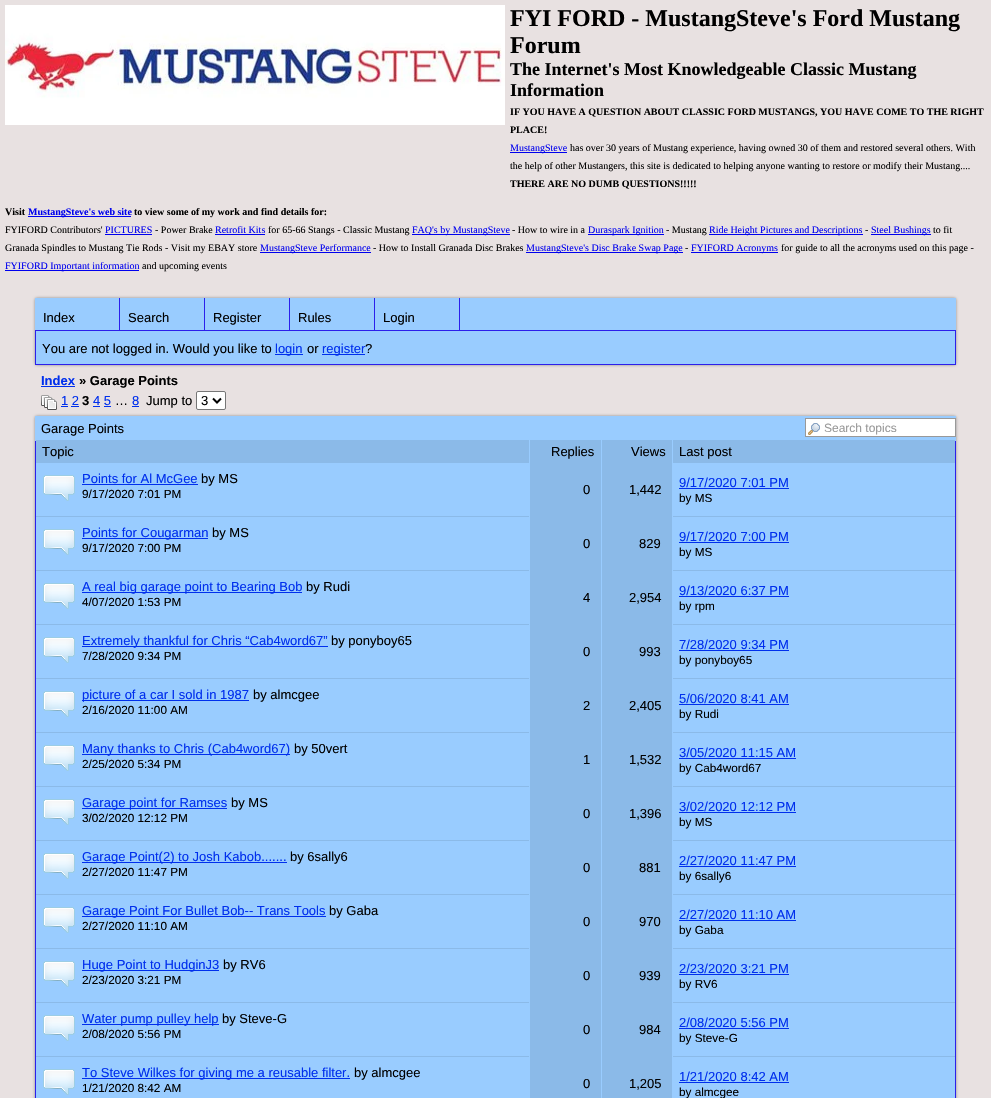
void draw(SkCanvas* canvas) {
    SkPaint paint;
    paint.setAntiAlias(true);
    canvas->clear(0xFFE8E1E1);
    canvas->drawImageRect(SkImages::DeferredFromEncodedData(SkData::MakeFromFileName("img1.png")), SkRect::MakeXYWH(5, 5, 500, 120), SkSamplingOptions());
    SkFont font1(fontMgr->matchFamilyStyle("Liberation Serif", SkFontStyle::Bold()), 24);
    font1.setSubpixel(true);
    paint.setColor(0xFF000000);
    canvas->drawString("FYI FORD - MustangSteve's Ford Mustang", 510, 26, font1, paint);
    canvas->drawString("Forum", 510, 53, font1, paint);
    SkFont font2(fontMgr->matchFamilyStyle("Liberation Serif", SkFontStyle::Bold()), 18);
    font2.setSubpixel(true);
    canvas->drawString("The Internet's Most Knowledgeable Classic Mustang", 510, 75, font2, paint);
    canvas->drawString("Information", 510, 96, font2, paint);
    SkFont font3(fontMgr->matchFamilyStyle("Liberation Serif", SkFontStyle::Bold()), 10);
    font3.setSubpixel(true);
    canvas->drawString("IF YOU HAVE A QUESTION ABOUT CLASSIC FORD MUSTANGS, YOU HAVE COME TO THE RIGHT", 510, 115, font3, paint);
    canvas->drawString("PLACE!", 510, 133, font3, paint);
    paint.setColor(0xFF0000EE);
    canvas->drawRect(SkRect::MakeXYWH(510, 152, 57, 1), paint);
    SkFont font4(fontMgr->matchFamilyStyle("Liberation Serif", SkFontStyle::Normal()), 10);
    font4.setSubpixel(true);
    canvas->drawString("MustangSteve", 510, 151, font4, paint);
    paint.setColor(0xFF000000);
    canvas->drawString("has over 30 years of Mustang experience, having owned 30 of them and restored several others. With", 570, 151, font4, paint);
    canvas->drawString("the help of other Mustangers, this site is dedicated to helping anyone wanting to restore or modify their Mustang....", 510, 169, font4, paint);
    canvas->drawString("THERE ARE NO DUMB QUESTIONS!!!!!", 510, 187, font3, paint);
    canvas->drawString("Visit", 5, 215, font3, paint);
    paint.setColor(0xFF0000EE);
    canvas->drawRect(SkRect::MakeXYWH(28, 216, 103, 1), paint);
    canvas->drawString("MustangSteve's web site", 28, 215, font3, paint);
    paint.setColor(0xFF000000);
    canvas->drawString("to view some of my work and find details for:", 134, 215, font3, paint);
    canvas->drawString("FYIFORD Contributors'", 5, 233, font4, paint);
    paint.setColor(0xFF0000EE);
    canvas->drawString("PICTURES", 105, 233, font4, paint);
    canvas->drawRect(SkRect::MakeXYWH(105, 234, 47, 1), paint);
    paint.setColor(0xFF000000);
    canvas->drawString("- Power Brake", 155, 233, font4, paint);
    paint.setColor(0xFF0000EE);
    canvas->drawString("Retrofit Kits", 215, 233, font4, paint);
    canvas->drawRect(SkRect::MakeXYWH(215, 234, 50, 1), paint);
    paint.setColor(0xFF000000);
    canvas->drawString("for 65-66 Stangs - Classic Mustang", 268, 233, font4, paint);
    paint.setColor(0xFF0000EE);
    canvas->drawRect(SkRect::MakeXYWH(412, 234, 98, 1), paint);
    canvas->drawString("FAQ's by MustangSteve", 412, 233, font4, paint);
    paint.setColor(0xFF000000);
    canvas->drawString("- How to wire in a", 512, 233, font4, paint);
    paint.setColor(0xFF0000EE);
    canvas->drawRect(SkRect::MakeXYWH(588, 234, 76, 1), paint);
    canvas->drawString("Duraspark Ignition", 588, 233, font4, paint);
    paint.setColor(0xFF000000);
    canvas->drawString("- Mustang", 666, 233, font4, paint);
    paint.setColor(0xFF0000EE);
    canvas->drawRect(SkRect::MakeXYWH(709, 234, 154, 1), paint);
    canvas->drawString("Ride Height Pictures and Descriptions", 709, 233, font4, paint);
    paint.setColor(0xFF000000);
    canvas->drawString("-", 865, 233, font4, paint);
    paint.setColor(0xFF0000EE);
    canvas->drawRect(SkRect::MakeXYWH(871, 234, 60, 1), paint);
    canvas->drawString("Steel Bushings", 871, 233, font4, paint);
    paint.setColor(0xFF000000);
    canvas->drawString("to fit", 933, 233, font4, paint);
    canvas->drawString("Granada Spindles to Mustang Tie Rods - Visit my EBAY store", 5, 251, font4, paint);
    paint.setColor(0xFF0000EE);
    canvas->drawRect(SkRect::MakeXYWH(260, 252, 111, 1), paint);
    canvas->drawString("MustangSteve Performance", 260, 251, font4, paint);
    paint.setColor(0xFF000000);
    canvas->drawString("- How to Install Granada Disc Brakes", 373, 251, font4, paint);
    paint.setColor(0xFF0000EE);
    canvas->drawRect(SkRect::MakeXYWH(526, 252, 157, 1), paint);
    canvas->drawString("MustangSteve's Disc Brake Swap Page", 526, 251, font4, paint);
    paint.setColor(0xFF000000);
    canvas->drawString("-", 685, 251, font4, paint);
    paint.setColor(0xFF0000EE);
    canvas->drawRect(SkRect::MakeXYWH(691, 252, 87, 1), paint);
    canvas->drawString("FYIFORD Acronyms", 691, 251, font4, paint);
    paint.setColor(0xFF000000);
    canvas->drawString("for guide to all the acronyms used on this page -", 781, 251, font4, paint);
    paint.setColor(0xFF0000EE);
    canvas->drawRect(SkRect::MakeXYWH(5, 270, 134, 1), paint);
    canvas->drawString("FYIFORD Important information", 5, 269, font4, paint);
    paint.setColor(0xFF000000);
    canvas->drawString("and upcoming events", 142, 269, font4, paint);
    paint.setColor(0xFF888888);
    paint.setMaskFilter(SkMaskFilter::MakeBlur(kNormal_SkBlurStyle, 1.5f));
    canvas->drawRoundRect(SkRect::MakeXYWH(35, 298, 921, 67), 2, 2, paint);
    paint.setMaskFilter(nullptr);
    paint.setColor(0xFF99CCFF);
    canvas->drawRect(SkRect::MakeXYWH(36, 331, 919, 33), paint);
    paint.setStyle(SkPaint::kStroke_Style);
    paint.setStrokeWidth(1);
    paint.setColor(0xFF2C1FEB);
    canvas->drawRect(SkRect::MakeXYWH(35.5f, 298.5f, 920, 66), paint);
    paint.setStyle(SkPaint::kFill_Style);
    paint.setColor(0xFF99CCFF);
    canvas->drawRect(SkRect::MakeXYWH(35, 298, 921, 32), paint);
    paint.setColor(0xFF2C1FEB);
    canvas->drawRect(SkRect::MakeXYWH(35, 330, 921, 1), paint);
    canvas->drawRect(SkRect::MakeXYWH(119, 298, 1, 32), paint);
    SkFont font5(fontMgr->matchFamilyStyle("Liberation Sans", SkFontStyle::Normal()), 13);
    font5.setSubpixel(true);
    paint.setColor(0xFF000000);
    canvas->drawString("Index", 43, 322, font5, paint);
    paint.setColor(0xFF2C1FEB);
    canvas->drawRect(SkRect::MakeXYWH(204, 298, 1, 32), paint);
    paint.setColor(0xFF000000);
    canvas->drawString("Search", 128, 322, font5, paint);
    paint.setColor(0xFF2C1FEB);
    canvas->drawRect(SkRect::MakeXYWH(289, 298, 1, 32), paint);
    paint.setColor(0xFF000000);
    canvas->drawString("Register", 213, 322, font5, paint);
    paint.setColor(0xFF2C1FEB);
    canvas->drawRect(SkRect::MakeXYWH(374, 298, 1, 32), paint);
    paint.setColor(0xFF000000);
    canvas->drawString("Rules", 298, 322, font5, paint);
    paint.setColor(0xFF2C1FEB);
    canvas->drawRect(SkRect::MakeXYWH(459, 298, 1, 32), paint);
    paint.setColor(0xFF000000);
    canvas->drawString("Login", 383, 322, font5, paint);
    canvas->drawString("You are not logged in. Would you like to", 42, 353, font5, paint);
    paint.setColor(0xFF002FED);
    canvas->drawRect(SkRect::MakeXYWH(275, 354, 28, 1), paint);
    canvas->drawString("login", 275, 353, font5, paint);
    paint.setColor(0xFF000000);
    canvas->drawString("or", 307, 353, font5, paint);
    paint.setColor(0xFF002FED);
    canvas->drawRect(SkRect::MakeXYWH(322, 354, 43, 1), paint);
    canvas->drawString("register", 322, 353, font5, paint);
    paint.setColor(0xFF000000);
    canvas->drawString("?", 365, 353, font5, paint);
    SkFont font6(fontMgr->matchFamilyStyle("Liberation Sans", SkFontStyle::Bold()), 13);
    font6.setSubpixel(true);
    paint.setColor(0xFF002FED);
    canvas->drawString("Index", 41, 385, font6, paint);
    canvas->drawRect(SkRect::MakeXYWH(41, 386, 34, 1), paint);
    paint.setColor(0xFF000000);
    canvas->drawString("» Garage Points", 79, 385, font6, paint);
    canvas->drawImageRect(SkImages::DeferredFromEncodedData(SkData::MakeFromFileName("img2.png")), SkRect::MakeXYWH(41, 395, 16, 15), SkSamplingOptions());
    paint.setColor(0xFF002FED);
    canvas->drawString("1 2", 61, 405, font5, paint);
    canvas->drawRect(SkRect::MakeXYWH(61, 406, 7, 1), paint);
    paint.setColor(0xFF000000);
    canvas->drawString("3", 82, 405, font6, paint);
    paint.setColor(0xFF002FED);
    canvas->drawString("4 5", 93, 405, font5, paint);
    canvas->drawRect(SkRect::MakeXYWH(93, 406, 7, 1), paint);
    paint.setColor(0xFF000000);
    canvas->drawString("…", 115, 405, font5, paint);
    paint.setColor(0xFF002FED);
    canvas->drawString("8", 132, 405, font5, paint);
    canvas->drawRect(SkRect::MakeXYWH(132, 406, 7, 1), paint);
    paint.setColor(0xFF000000);
    canvas->drawString("Jump to", 146, 405, font5, paint);
    paint.setColor(0xFFFFFFFF);
    canvas->drawRoundRect(SkRect::MakeXYWH(196.5f, 391.5f, 29, 18), 1.5f, 1.5f, paint);
    paint.setStyle(SkPaint::kStroke_Style);
    paint.setColor(0xFF767676);
    canvas->drawRoundRect(SkRect::MakeXYWH(196.5f, 391.5f, 29, 18), 1.5f, 1.5f, paint);
    paint.setStrokeWidth(2);
    paint.setColor(0xFF000000);
    canvas->drawPath(SkPathBuilder().moveTo(213, 398.5f).lineTo(217, 402.5f).lineTo(221, 398.5f).detach(), paint);
    paint.setStyle(SkPaint::kFill_Style);
    canvas->drawString("3", 201, 405, font5, paint);
    paint.setColor(0xFF002FED);
    canvas->drawRect(SkRect::MakeXYWH(71, 406, 8, 1), paint);
    canvas->drawRect(SkRect::MakeXYWH(104, 406, 7, 1), paint);
    paint.setColor(0xFF888888);
    paint.setMaskFilter(SkMaskFilter::MakeBlur(kNormal_SkBlurStyle, 1.5f));
    canvas->drawRoundRect(SkRect::MakeXYWH(35, 416, 921, 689), 2, 2, paint);
    paint.setMaskFilter(nullptr);
    paint.setColor(0xFF99CCFF);
    canvas->drawRect(SkRect::MakeXYWH(35, 416, 921, 25), paint);
    paint.setColor(0xFF000000);
    canvas->drawString("Garage Points", 41, 433, font5, paint);
    paint.setColor(0xFFFFFFFF);
    canvas->drawRect(SkRect::MakeXYWH(806, 419, 149, 17), paint);
    canvas->drawImageRect(SkImages::DeferredFromEncodedData(SkData::MakeFromFileName("img3.png")), SkRect::MakeXYWH(808, 423, 12, 12), SkSamplingOptions());
    paint.setStyle(SkPaint::kStroke_Style);
    paint.setStrokeWidth(1);
    paint.setColor(0xFF999999);
    canvas->drawRect(SkRect::MakeXYWH(805.5f, 418.5f, 150, 18), paint);
    SkFont font7(fontMgr->matchFamilyStyle("Liberation Sans", SkFontStyle::Normal()), 12);
    font7.setSubpixel(true);
    paint.setStyle(SkPaint::kFill_Style);
    canvas->drawString("Search topics", 824, 432, font7, paint);
    paint.setColor(0xFF99CCFF);
    canvas->drawRect(SkRect::MakeXYWH(36, 463, 919, 635), paint);
    paint.setStyle(SkPaint::kStroke_Style);
    paint.setColor(0xFF2C1FEB);
    canvas->drawRect(SkRect::MakeXYWH(35.5f, 441.5f, 920, 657), paint);
    paint.setStyle(SkPaint::kFill_Style);
    paint.setColor(0xFF8BBAE8);
    canvas->drawRect(SkRect::MakeXYWH(36, 440, 493, 23), paint);
    paint.setColor(0xFF000000);
    canvas->drawString("Topic", 42, 456, font5, paint);
    paint.setColor(0xFF8BBAE8);
    canvas->drawRect(SkRect::MakeXYWH(530, 440, 71, 658), paint);
    paint.setColor(0xFF99CCFF);
    canvas->drawRect(SkRect::MakeXYWH(529, 440, 1, 23), paint);
    paint.setColor(0xFF000000);
    canvas->drawString("Replies", 551, 456, font5, paint);
    paint.setColor(0xFF8BBAE8);
    canvas->drawRect(SkRect::MakeXYWH(602, 440, 70, 658), paint);
    paint.setColor(0xFF99CCFF);
    canvas->drawRect(SkRect::MakeXYWH(601, 440, 1, 23), paint);
    paint.setColor(0xFF000000);
    canvas->drawString("Views", 631, 456, font5, paint);
    paint.setColor(0xFF8BBAE8);
    canvas->drawRect(SkRect::MakeXYWH(673, 440, 282, 22), paint);
    paint.setColor(0xFF99CCFF);
    canvas->drawRect(SkRect::MakeXYWH(672, 440, 1, 22), paint);
    paint.setColor(0xFF000000);
    canvas->drawString("Last post", 679, 456, font5, paint);
    canvas->drawImageRect(SkImages::DeferredFromEncodedData(SkData::MakeFromFileName("img4.png")), SkRect::MakeXYWH(43, 475, 32, 26), SkSamplingOptions());
    paint.setColor(0xFF002FED);
    canvas->drawString("Points for Al McGee", 82, 483, font5, paint);
    canvas->drawRect(SkRect::MakeXYWH(82, 484, 116, 1), paint);
    paint.setColor(0xFF000000);
    canvas->drawString("by MS", 201, 483, font5, paint);
    SkFont font8(fontMgr->matchFamilyStyle("Liberation Sans", SkFontStyle::Normal()), 11.75f);
    font8.setSubpixel(true);
    canvas->drawString("9/17/2020 7:01 PM", 82, 498, font8, paint);
    canvas->drawString("0", 583, 494, font5, paint);
    canvas->drawString("1,442", 629, 494, font5, paint);
    paint.setColor(0xFF8BBAE8);
    canvas->drawRect(SkRect::MakeXYWH(672, 462, 283, 1), paint);
    paint.setColor(0xFF99CCFF);
    canvas->drawRect(SkRect::MakeXYWH(672, 462, 1, 1), paint);
    paint.setColor(0xFF002FED);
    canvas->drawString("9/17/2020 7:01 PM", 679, 487, font5, paint);
    canvas->drawRect(SkRect::MakeXYWH(679, 488, 110, 1), paint);
    paint.setColor(0xFF000000);
    canvas->drawString("by MS", 679, 502, font8, paint);
    paint.setColor(0xFF8BBAE8);
    canvas->drawRect(SkRect::MakeXYWH(36, 516, 493, 1), paint);
    canvas->drawImageRect(SkImages::DeferredFromEncodedData(SkData::MakeFromFileName("img4.png")), SkRect::MakeXYWH(43, 529, 32, 26), SkSamplingOptions());
    paint.setColor(0xFF002FED);
    canvas->drawRect(SkRect::MakeXYWH(82, 538, 126, 1), paint);
    canvas->drawString("Points for Cougarman", 82, 537, font5, paint);
    paint.setColor(0xFF000000);
    canvas->drawString("by MS", 212, 537, font5, paint);
    canvas->drawString("9/17/2020 7:00 PM", 82, 552, font8, paint);
    canvas->drawString("0", 583, 548, font5, paint);
    canvas->drawString("829", 639, 548, font5, paint);
    paint.setColor(0xFF8BBAE8);
    canvas->drawRect(SkRect::MakeXYWH(672, 516, 283, 1), paint);
    paint.setColor(0xFF99CCFF);
    canvas->drawRect(SkRect::MakeXYWH(672, 516, 1, 1), paint);
    paint.setColor(0xFF002FED);
    canvas->drawString("9/17/2020 7:00 PM", 679, 541, font5, paint);
    canvas->drawRect(SkRect::MakeXYWH(679, 542, 110, 1), paint);
    paint.setColor(0xFF000000);
    canvas->drawString("by MS", 679, 556, font8, paint);
    paint.setColor(0xFF8BBAE8);
    canvas->drawRect(SkRect::MakeXYWH(36, 570, 493, 1), paint);
    canvas->drawImageRect(SkImages::DeferredFromEncodedData(SkData::MakeFromFileName("img4.png")), SkRect::MakeXYWH(43, 583, 32, 26), SkSamplingOptions());
    paint.setColor(0xFF002FED);
    canvas->drawRect(SkRect::MakeXYWH(82, 592, 220, 1), paint);
    canvas->drawString("A real big garage point to Bearing Bob", 82, 591, font5, paint);
    paint.setColor(0xFF000000);
    canvas->drawString("by Rudi", 306, 591, font5, paint);
    canvas->drawString("4/07/2020 1:53 PM", 82, 606, font8, paint);
    canvas->drawString("4", 583, 602, font5, paint);
    canvas->drawString("2,954", 629, 602, font5, paint);
    paint.setColor(0xFF8BBAE8);
    canvas->drawRect(SkRect::MakeXYWH(672, 570, 283, 1), paint);
    paint.setColor(0xFF99CCFF);
    canvas->drawRect(SkRect::MakeXYWH(672, 570, 1, 1), paint);
    paint.setColor(0xFF002FED);
    canvas->drawString("9/13/2020 6:37 PM", 679, 595, font5, paint);
    canvas->drawRect(SkRect::MakeXYWH(679, 596, 110, 1), paint);
    paint.setColor(0xFF000000);
    canvas->drawString("by rpm", 679, 610, font8, paint);
    paint.setColor(0xFF8BBAE8);
    canvas->drawRect(SkRect::MakeXYWH(36, 624, 493, 1), paint);
    canvas->drawImageRect(SkImages::DeferredFromEncodedData(SkData::MakeFromFileName("img4.png")), SkRect::MakeXYWH(43, 637, 32, 26), SkSamplingOptions());
    paint.setColor(0xFF002FED);
    canvas->drawRect(SkRect::MakeXYWH(82, 646, 246, 1), paint);
    canvas->drawString("Extremely thankful for Chris “Cab4word67”", 82, 645, font5, paint);
    paint.setColor(0xFF000000);
    canvas->drawString("by ponyboy65", 331, 645, font5, paint);
    canvas->drawString("7/28/2020 9:34 PM", 82, 660, font8, paint);
    canvas->drawString("0", 583, 656, font5, paint);
    canvas->drawString("993", 639, 656, font5, paint);
    paint.setColor(0xFF8BBAE8);
    canvas->drawRect(SkRect::MakeXYWH(672, 624, 283, 1), paint);
    paint.setColor(0xFF99CCFF);
    canvas->drawRect(SkRect::MakeXYWH(672, 624, 1, 1), paint);
    paint.setColor(0xFF002FED);
    canvas->drawString("7/28/2020 9:34 PM", 679, 649, font5, paint);
    canvas->drawRect(SkRect::MakeXYWH(679, 650, 110, 1), paint);
    paint.setColor(0xFF000000);
    canvas->drawString("by ponyboy65", 679, 664, font8, paint);
    paint.setColor(0xFF8BBAE8);
    canvas->drawRect(SkRect::MakeXYWH(36, 678, 493, 1), paint);
    canvas->drawImageRect(SkImages::DeferredFromEncodedData(SkData::MakeFromFileName("img4.png")), SkRect::MakeXYWH(43, 691, 32, 26), SkSamplingOptions());
    paint.setColor(0xFF002FED);
    canvas->drawRect(SkRect::MakeXYWH(82, 700, 167, 1), paint);
    canvas->drawString("picture of a car I sold in 1987", 82, 699, font5, paint);
    paint.setColor(0xFF000000);
    canvas->drawString("by almcgee", 253, 699, font5, paint);
    canvas->drawString("2/16/2020 11:00 AM", 82, 714, font8, paint);
    canvas->drawString("2", 583, 710, font5, paint);
    canvas->drawString("2,405", 629, 710, font5, paint);
    paint.setColor(0xFF8BBAE8);
    canvas->drawRect(SkRect::MakeXYWH(672, 678, 283, 1), paint);
    paint.setColor(0xFF99CCFF);
    canvas->drawRect(SkRect::MakeXYWH(672, 678, 1, 1), paint);
    paint.setColor(0xFF002FED);
    canvas->drawString("5/06/2020 8:41 AM", 679, 703, font5, paint);
    canvas->drawRect(SkRect::MakeXYWH(679, 704, 110, 1), paint);
    paint.setColor(0xFF000000);
    canvas->drawString("by Rudi", 679, 718, font8, paint);
    paint.setColor(0xFF8BBAE8);
    canvas->drawRect(SkRect::MakeXYWH(36, 732, 493, 1), paint);
    canvas->drawImageRect(SkImages::DeferredFromEncodedData(SkData::MakeFromFileName("img4.png")), SkRect::MakeXYWH(43, 745, 32, 26), SkSamplingOptions());
    paint.setColor(0xFF002FED);
    canvas->drawRect(SkRect::MakeXYWH(82, 754, 208, 1), paint);
    canvas->drawString("Many thanks to Chris (Cab4word67)", 82, 753, font5, paint);
    paint.setColor(0xFF000000);
    canvas->drawString("by 50vert", 294, 753, font5, paint);
    canvas->drawString("2/25/2020 5:34 PM", 82, 768, font8, paint);
    canvas->drawString("1", 583, 764, font5, paint);
    canvas->drawString("1,532", 629, 764, font5, paint);
    paint.setColor(0xFF8BBAE8);
    canvas->drawRect(SkRect::MakeXYWH(672, 732, 283, 1), paint);
    paint.setColor(0xFF99CCFF);
    canvas->drawRect(SkRect::MakeXYWH(672, 732, 1, 1), paint);
    paint.setColor(0xFF002FED);
    canvas->drawString("3/05/2020 11:15 AM", 679, 757, font5, paint);
    canvas->drawRect(SkRect::MakeXYWH(679, 758, 117, 1), paint);
    paint.setColor(0xFF000000);
    canvas->drawString("by Cab4word67", 679, 772, font8, paint);
    paint.setColor(0xFF8BBAE8);
    canvas->drawRect(SkRect::MakeXYWH(36, 786, 493, 1), paint);
    canvas->drawImageRect(SkImages::DeferredFromEncodedData(SkData::MakeFromFileName("img4.png")), SkRect::MakeXYWH(43, 799, 32, 26), SkSamplingOptions());
    paint.setColor(0xFF002FED);
    canvas->drawRect(SkRect::MakeXYWH(82, 808, 145, 1), paint);
    canvas->drawString("Garage point for Ramses", 82, 807, font5, paint);
    paint.setColor(0xFF000000);
    canvas->drawString("by MS", 231, 807, font5, paint);
    canvas->drawString("3/02/2020 12:12 PM", 82, 822, font8, paint);
    canvas->drawString("0", 583, 818, font5, paint);
    canvas->drawString("1,396", 629, 818, font5, paint);
    paint.setColor(0xFF8BBAE8);
    canvas->drawRect(SkRect::MakeXYWH(672, 786, 283, 1), paint);
    paint.setColor(0xFF99CCFF);
    canvas->drawRect(SkRect::MakeXYWH(672, 786, 1, 1), paint);
    paint.setColor(0xFF002FED);
    canvas->drawString("3/02/2020 12:12 PM", 679, 811, font5, paint);
    canvas->drawRect(SkRect::MakeXYWH(679, 812, 117, 1), paint);
    paint.setColor(0xFF000000);
    canvas->drawString("by MS", 679, 826, font8, paint);
    paint.setColor(0xFF8BBAE8);
    canvas->drawRect(SkRect::MakeXYWH(36, 840, 493, 1), paint);
    canvas->drawImageRect(SkImages::DeferredFromEncodedData(SkData::MakeFromFileName("img4.png")), SkRect::MakeXYWH(43, 853, 32, 26), SkSamplingOptions());
    paint.setColor(0xFF002FED);
    canvas->drawRect(SkRect::MakeXYWH(82, 862, 205, 1), paint);
    canvas->drawString("Garage Point(2) to Josh Kabob.......", 82, 861, font5, paint);
    paint.setColor(0xFF000000);
    canvas->drawString("by 6sally6", 290, 861, font5, paint);
    canvas->drawString("2/27/2020 11:47 PM", 82, 876, font8, paint);
    canvas->drawString("0", 583, 872, font5, paint);
    canvas->drawString("881", 639, 872, font5, paint);
    paint.setColor(0xFF8BBAE8);
    canvas->drawRect(SkRect::MakeXYWH(672, 840, 283, 1), paint);
    paint.setColor(0xFF99CCFF);
    canvas->drawRect(SkRect::MakeXYWH(672, 840, 1, 1), paint);
    paint.setColor(0xFF002FED);
    canvas->drawString("2/27/2020 11:47 PM", 679, 865, font5, paint);
    canvas->drawRect(SkRect::MakeXYWH(679, 866, 117, 1), paint);
    paint.setColor(0xFF000000);
    canvas->drawString("by 6sally6", 679, 880, font8, paint);
    paint.setColor(0xFF8BBAE8);
    canvas->drawRect(SkRect::MakeXYWH(36, 894, 493, 1), paint);
    canvas->drawImageRect(SkImages::DeferredFromEncodedData(SkData::MakeFromFileName("img4.png")), SkRect::MakeXYWH(43, 907, 32, 26), SkSamplingOptions());
    paint.setColor(0xFF002FED);
    canvas->drawRect(SkRect::MakeXYWH(82, 916, 244, 1), paint);
    canvas->drawString("Garage Point For Bullet Bob-- Trans Tools", 82, 915, font5, paint);
    paint.setColor(0xFF000000);
    canvas->drawString("by Gaba", 329, 915, font5, paint);
    canvas->drawString("2/27/2020 11:10 AM", 82, 930, font8, paint);
    canvas->drawString("0", 583, 926, font5, paint);
    canvas->drawString("970", 639, 926, font5, paint);
    paint.setColor(0xFF8BBAE8);
    canvas->drawRect(SkRect::MakeXYWH(672, 894, 283, 1), paint);
    paint.setColor(0xFF99CCFF);
    canvas->drawRect(SkRect::MakeXYWH(672, 894, 1, 1), paint);
    paint.setColor(0xFF002FED);
    canvas->drawString("2/27/2020 11:10 AM", 679, 919, font5, paint);
    canvas->drawRect(SkRect::MakeXYWH(679, 920, 117, 1), paint);
    paint.setColor(0xFF000000);
    canvas->drawString("by Gaba", 679, 934, font8, paint);
    paint.setColor(0xFF8BBAE8);
    canvas->drawRect(SkRect::MakeXYWH(36, 948, 493, 1), paint);
    canvas->drawImageRect(SkImages::DeferredFromEncodedData(SkData::MakeFromFileName("img4.png")), SkRect::MakeXYWH(43, 961, 32, 26), SkSamplingOptions());
    paint.setColor(0xFF002FED);
    canvas->drawRect(SkRect::MakeXYWH(82, 970, 137, 1), paint);
    canvas->drawString("Huge Point to HudginJ3", 82, 969, font5, paint);
    paint.setColor(0xFF000000);
    canvas->drawString("by RV6", 223, 969, font5, paint);
    canvas->drawString("2/23/2020 3:21 PM", 82, 984, font8, paint);
    canvas->drawString("0", 583, 980, font5, paint);
    canvas->drawString("939", 639, 980, font5, paint);
    paint.setColor(0xFF8BBAE8);
    canvas->drawRect(SkRect::MakeXYWH(672, 948, 283, 1), paint);
    paint.setColor(0xFF99CCFF);
    canvas->drawRect(SkRect::MakeXYWH(672, 948, 1, 1), paint);
    paint.setColor(0xFF002FED);
    canvas->drawString("2/23/2020 3:21 PM", 679, 973, font5, paint);
    canvas->drawRect(SkRect::MakeXYWH(679, 974, 110, 1), paint);
    paint.setColor(0xFF000000);
    canvas->drawString("by RV6", 679, 988, font8, paint);
    paint.setColor(0xFF8BBAE8);
    canvas->drawRect(SkRect::MakeXYWH(36, 1002, 493, 1), paint);
    canvas->drawImageRect(SkImages::DeferredFromEncodedData(SkData::MakeFromFileName("img4.png")), SkRect::MakeXYWH(43, 1015, 32, 26), SkSamplingOptions());
    paint.setColor(0xFF002FED);
    canvas->drawRect(SkRect::MakeXYWH(82, 1024, 137, 1), paint);
    canvas->drawString("Water pump pulley help", 82, 1023, font5, paint);
    paint.setColor(0xFF000000);
    canvas->drawString("by Steve-G", 222, 1023, font5, paint);
    canvas->drawString("2/08/2020 5:56 PM", 82, 1038, font8, paint);
    canvas->drawString("0", 583, 1034, font5, paint);
    canvas->drawString("984", 639, 1034, font5, paint);
    paint.setColor(0xFF8BBAE8);
    canvas->drawRect(SkRect::MakeXYWH(672, 1002, 283, 1), paint);
    paint.setColor(0xFF99CCFF);
    canvas->drawRect(SkRect::MakeXYWH(672, 1002, 1, 1), paint);
    paint.setColor(0xFF002FED);
    canvas->drawString("2/08/2020 5:56 PM", 679, 1027, font5, paint);
    canvas->drawRect(SkRect::MakeXYWH(679, 1028, 110, 1), paint);
    paint.setColor(0xFF000000);
    canvas->drawString("by Steve-G", 679, 1042, font8, paint);
    paint.setColor(0xFF8BBAE8);
    canvas->drawRect(SkRect::MakeXYWH(36, 1056, 493, 1), paint);
    canvas->drawImageRect(SkImages::DeferredFromEncodedData(SkData::MakeFromFileName("img4.png")), SkRect::MakeXYWH(43, 1069, 32, 26), SkSamplingOptions());
    paint.setColor(0xFF002FED);
    canvas->drawRect(SkRect::MakeXYWH(82, 1078, 268, 1), paint);
    canvas->drawString("To Steve Wilkes for giving me a reusable filter.", 82, 1077, font5, paint);
    paint.setColor(0xFF000000);
    canvas->drawString("by almcgee", 354, 1077, font5, paint);
    canvas->drawString("1/21/2020 8:42 AM", 82, 1092, font8, paint);
    canvas->drawString("0", 583, 1088, font5, paint);
    canvas->drawString("1,205", 629, 1088, font5, paint);
    paint.setColor(0xFF8BBAE8);
    canvas->drawRect(SkRect::MakeXYWH(672, 1056, 283, 1), paint);
    paint.setColor(0xFF99CCFF);
    canvas->drawRect(SkRect::MakeXYWH(672, 1056, 1, 1), paint);
    paint.setColor(0xFF002FED);
    canvas->drawString("1/21/2020 8:42 AM", 679, 1081, font5, paint);
    canvas->drawRect(SkRect::MakeXYWH(679, 1082, 110, 1), paint);
    paint.setColor(0xFF000000);
    canvas->drawString("by almcgee", 679, 1096, font8, paint);
}
